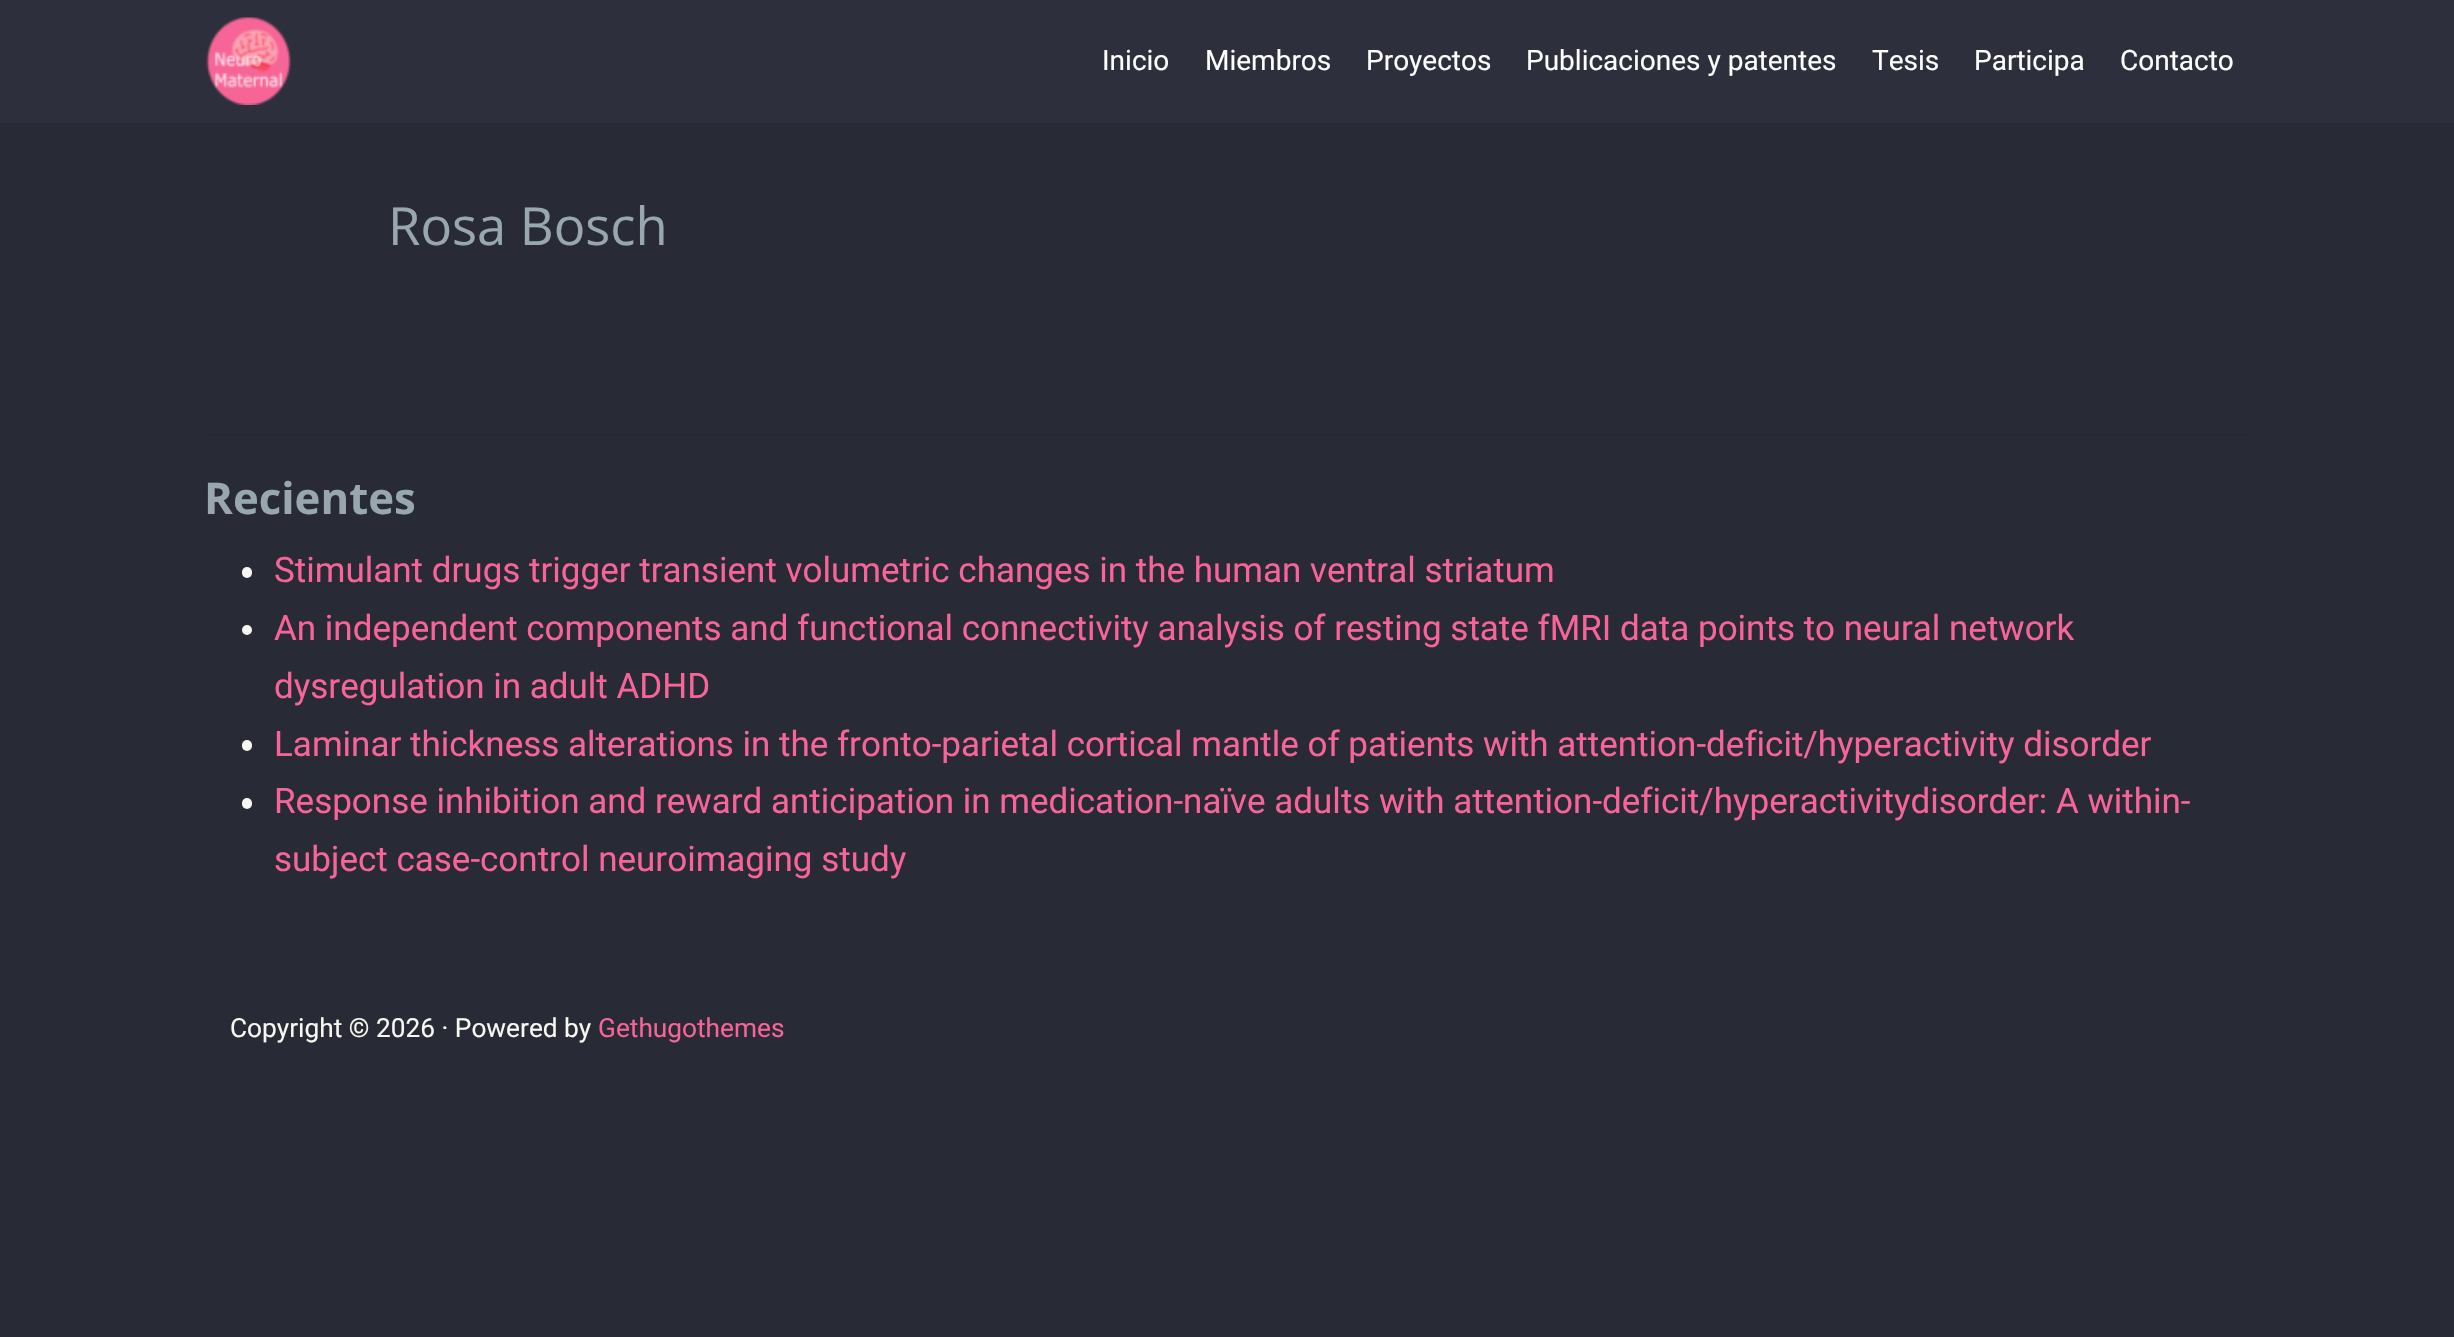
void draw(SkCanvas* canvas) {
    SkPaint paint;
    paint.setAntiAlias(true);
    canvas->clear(0xFF282A36);
    paint.setColor(0xFF2D303C);
    canvas->drawRect(SkRect::MakeXYWH(0, 0, 2454, 123), paint);
    canvas->drawImageRect(SkImages::DeferredFromEncodedData(SkData::MakeFromFileName("img1.png")), SkRect::MakeXYWH(206, 17, 85, 88), SkSamplingOptions());
    SkFont font1(fontMgr->matchFamilyStyle("Roboto", SkFontStyle::Normal()), 28);
    font1.setSubpixel(true);
    paint.setColor(0xFFFFFFFF);
    canvas->drawString("Inicio", 1102, 70, font1, paint);
    canvas->drawString("Miembros", 1205, 70, font1, paint);
    canvas->drawString("Proyectos", 1366, 70, font1, paint);
    canvas->drawString("Publicaciones y patentes", 1526, 70, font1, paint);
    canvas->drawString("Tesis", 1872, 70, font1, paint);
    canvas->drawString("Participa", 1974, 70, font1, paint);
    canvas->drawString("Contacto", 2120, 70, font1, paint);
    SkFont font2(fontMgr->matchFamilyStyle("Open Sans", SkFontStyle::Normal()), 52.5f);
    font2.setSubpixel(true);
    paint.setColor(0xFF98A6AD);
    canvas->drawString("Rosa Bosch", 388, 245, font2, paint);
    paint.setColor(0xFF262833);
    canvas->drawRect(SkRect::MakeXYWH(205, 434, 2047, 2), paint);
    SkFont font3(fontMgr->matchFamilyStyle("Open Sans", SkFontStyle::Bold()), 43.75f);
    font3.setSubpixel(true);
    paint.setColor(0xFF98A6AD);
    canvas->drawString("Recientes", 204, 514, font3, paint);
    paint.setColor(0xFFF8F8F2);
    canvas->drawRoundRect(SkRect::MakeXYWH(242, 567, 10, 11), 5, 5, paint);
    SkFont font4(fontMgr->matchFamilyStyle("Roboto", SkFontStyle::Normal()), 35);
    font4.setSubpixel(true);
    paint.setColor(0xFFF76497);
    canvas->drawString("Stimulant drugs trigger transient volumetric changes in the human ventral striatum", 274, 582, font4, paint);
    paint.setColor(0xFFF8F8F2);
    canvas->drawCircle(247, 630, 5, paint);
    paint.setColor(0xFFF76497);
    canvas->drawString("An independent components and functional connectivity analysis of resting state fMRI data points to neural network", 274, 640, font4, paint);
    canvas->drawString("dysregulation in adult ADHD", 274, 698, font4, paint);
    paint.setColor(0xFFF8F8F2);
    canvas->drawRoundRect(SkRect::MakeXYWH(242, 740, 10, 11), 5, 5, paint);
    paint.setColor(0xFFF76497);
    canvas->drawString("Laminar thickness alterations in the fronto-parietal cortical mantle of patients with attention-deficit/hyperactivity disorder", 274, 756, font4, paint);
    paint.setColor(0xFFF8F8F2);
    canvas->drawRoundRect(SkRect::MakeXYWH(242, 798, 10, 11), 5, 5, paint);
    paint.setColor(0xFFF76497);
    canvas->drawString("Response inhibition and reward anticipation in medication-naïve adults with attention-deficit/hyperactivitydisorder: A within-", 274, 813, font4, paint);
    canvas->drawString("subject case-control neuroimaging study", 274, 871, font4, paint);
    SkFont font5(fontMgr->matchFamilyStyle("Roboto", SkFontStyle::Normal()), 26.25f);
    font5.setSubpixel(true);
    paint.setColor(0xFFF8F8F2);
    canvas->drawString("Copyright © 2026 · Powered by", 230, 1037, font5, paint);
    paint.setColor(0xFFF76497);
    canvas->drawString("Gethugothemes", 598, 1037, font5, paint);
}
